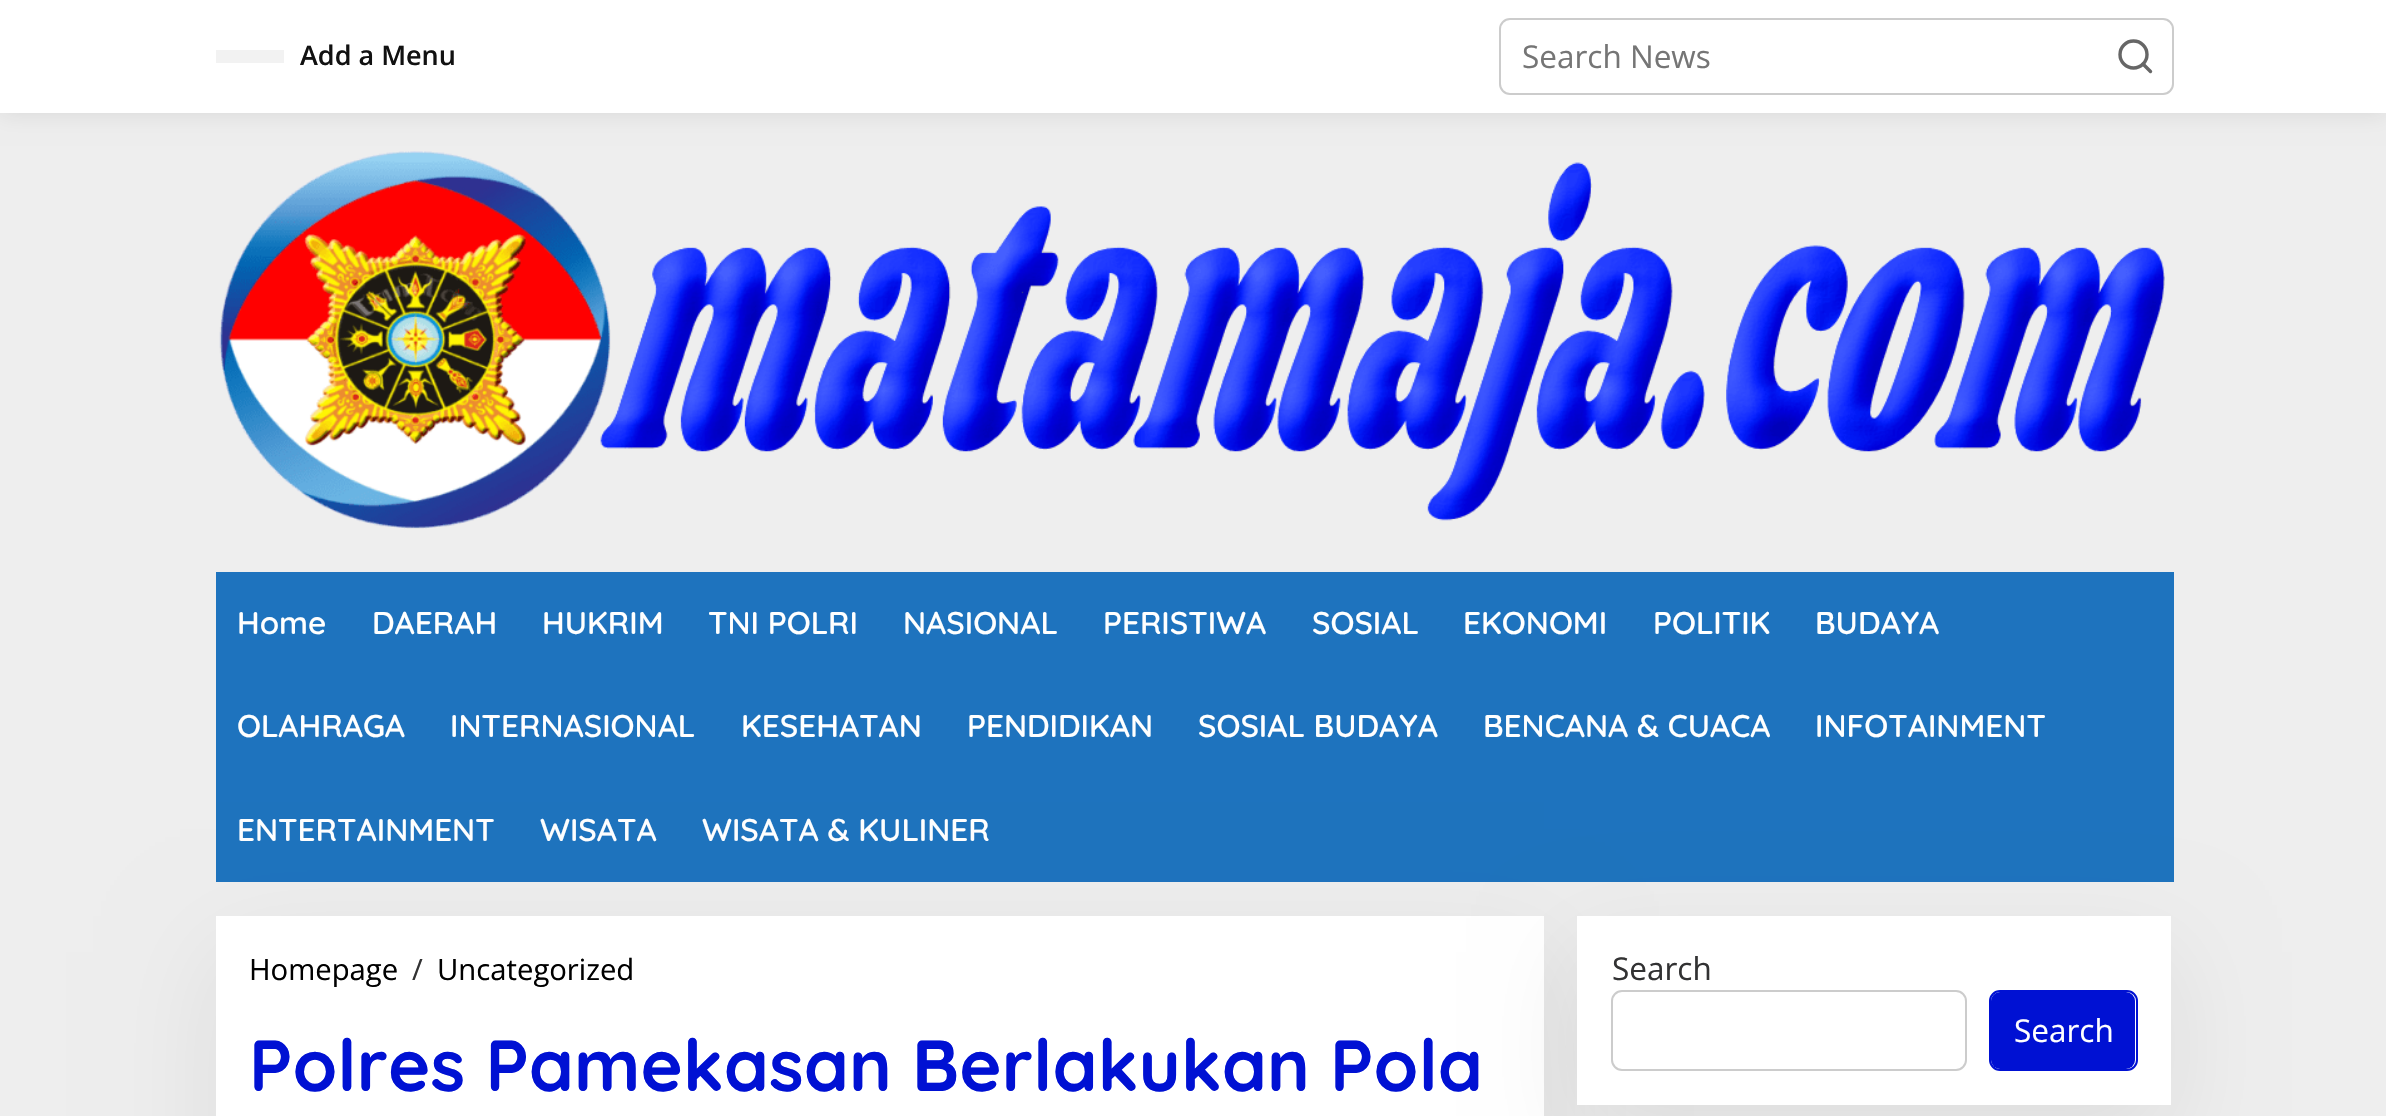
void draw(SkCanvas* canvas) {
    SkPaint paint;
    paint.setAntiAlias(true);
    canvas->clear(0xFFEEEEEE);
    paint.setColor(0x1A000000);
    paint.setMaskFilter(SkMaskFilter::MakeBlur(kNormal_SkBlurStyle, 11));
    canvas->drawRect(SkRect::MakeXYWH(0, 0, 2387, 113), paint);
    paint.setMaskFilter(nullptr);
    paint.setColor(0xFFFFFFFF);
    canvas->drawRect(SkRect::MakeXYWH(0, 0, 2386, 113), paint);
    paint.setColor(0xFFF2F2F2);
    canvas->drawRect(SkRect::MakeXYWH(216, 50, 68, 13), paint);
    SkFont font1(fontMgr->matchFamilyStyle("Open Sans", SkFontStyle(600, SkFontStyle::kNormal_Width, SkFontStyle::kUpright_Slant)), 27);
    font1.setSubpixel(true);
    paint.setColor(0xFF111111);
    canvas->drawString("Add a Menu", 300, 65, font1, paint);
    paint.setStyle(SkPaint::kStroke_Style);
    paint.setStrokeWidth(2);
    paint.setColor(0xFFCCCCCC);
    canvas->drawRoundRect(SkRect::MakeXYWH(1500, 19, 673, 75), 10, 10, paint);
    SkFont font2(fontMgr->matchFamilyStyle("Open Sans", SkFontStyle::Normal()), 31.5f);
    font2.setSubpixel(true);
    paint.setStyle(SkPaint::kFill_Style);
    paint.setColor(0xFF757575);
    canvas->drawString("Search News", 1522, 68, font2, paint);
    paint.setStyle(SkPaint::kStroke_Style);
    paint.setStrokeWidth(3.4f);
    paint.setColor(0xFF666666);
    canvas->drawCircle(2133.5f, 54.5f, 13.5f, paint);
    paint.setStrokeCap(SkPaint::kRound_Cap);
    paint.setStrokeJoin(SkPaint::kRound_Join);
    canvas->drawPath(SkPathBuilder().moveTo(2150.5f, 71.5f).lineTo(2143, 64).detach(), paint);
    canvas->drawImageRect(SkImages::DeferredFromEncodedData(SkData::MakeFromFileName("img1.png")), SkRect::MakeXYWH(219, 151, 1946, 378), SkSamplingOptions());
    paint.setStyle(SkPaint::kFill_Style);
    paint.setColor(0xFF1E73BE);
    canvas->drawRect(SkRect::MakeXYWH(216, 572, 1958, 310), paint);
    SkFont font3(fontMgr->matchFamilyStyle("Quicksand", SkFontStyle(600, SkFontStyle::kNormal_Width, SkFontStyle::kUpright_Slant)), 31.5f);
    font3.setSubpixel(true);
    paint.setColor(0xFFFFFFFF);
    canvas->drawString("Home", 237, 634, font3, paint);
    canvas->drawString("DAERAH", 372, 634, font3, paint);
    canvas->drawString("HUKRIM", 542, 634, font3, paint);
    canvas->drawString("TNI POLRI", 708, 634, font3, paint);
    canvas->drawString("NASIONAL", 903, 634, font3, paint);
    canvas->drawString("PERISTIWA", 1103, 634, font3, paint);
    canvas->drawString("SOSIAL", 1312, 634, font3, paint);
    canvas->drawString("EKONOMI", 1463, 634, font3, paint);
    canvas->drawString("POLITIK", 1653, 634, font3, paint);
    canvas->drawString("BUDAYA", 1815, 634, font3, paint);
    canvas->drawString("OLAHRAGA", 237, 737, font3, paint);
    canvas->drawString("INTERNASIONAL", 450, 737, font3, paint);
    canvas->drawString("KESEHATAN", 741, 737, font3, paint);
    canvas->drawString("PENDIDIKAN", 967, 737, font3, paint);
    canvas->drawString("SOSIAL BUDAYA", 1198, 737, font3, paint);
    canvas->drawString("BENCANA & CUACA", 1483, 737, font3, paint);
    canvas->drawString("INFOTAINMENT", 1815, 737, font3, paint);
    canvas->drawString("ENTERTAINMENT", 237, 841, font3, paint);
    canvas->drawString("WISATA", 540, 841, font3, paint);
    canvas->drawString("WISATA & KULINER", 702, 841, font3, paint);
    paint.setColor(0x12000000);
    paint.setMaskFilter(SkMaskFilter::MakeBlur(kNormal_SkBlurStyle, 50.5f));
    canvas->drawRect(SkRect::MakeXYWH(216, 952, 1328, 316), paint);
    paint.setMaskFilter(nullptr);
    paint.setColor(0xFFFFFFFF);
    canvas->drawRect(SkRect::MakeXYWH(216, 916, 1328, 200), paint);
    SkFont font4(fontMgr->matchFamilyStyle("Open Sans", SkFontStyle::Normal()), 29.25f);
    font4.setSubpixel(true);
    paint.setColor(0xFF000000);
    canvas->drawString("Homepage", 249, 980, font4, paint);
    paint.setColor(0xFF323233);
    canvas->drawString("/", 412, 980, font4, paint);
    paint.setColor(0xFF000000);
    canvas->drawString("Uncategorized", 437, 980, font4, paint);
    SkFont font5(fontMgr->matchFamilyStyle("Quicksand", SkFontStyle::Bold()), 72);
    font5.setSubpixel(true);
    paint.setColor(0xFF0011D3);
    canvas->drawString("Polres Pamekasan Berlakukan Pola", 249, 1091, font5, paint);
    paint.setColor(0x12000000);
    paint.setMaskFilter(SkMaskFilter::MakeBlur(kNormal_SkBlurStyle, 50.5f));
    canvas->drawRect(SkRect::MakeXYWH(1577, 952, 594, 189), paint);
    paint.setMaskFilter(nullptr);
    paint.setColor(0xFFFFFFFF);
    canvas->drawRect(SkRect::MakeXYWH(1577, 916, 594, 189), paint);
    paint.setColor(0xFF323233);
    canvas->drawString("Search", 1612, 980, font2, paint);
    paint.setStyle(SkPaint::kStroke_Style);
    paint.setStrokeWidth(2);
    paint.setStrokeCap(SkPaint::kButt_Cap);
    paint.setStrokeJoin(SkPaint::kMiter_Join);
    paint.setColor(0xFFCCCCCC);
    canvas->drawRoundRect(SkRect::MakeXYWH(1612, 991, 354, 79), 10, 10, paint);
    paint.setStyle(SkPaint::kFill_Style);
    paint.setColor(0xFF0011D3);
    canvas->drawRoundRect(SkRect::MakeXYWH(1991, 992, 144, 77), 9, 9, paint);
    paint.setStyle(SkPaint::kStroke_Style);
    canvas->drawRoundRect(SkRect::MakeXYWH(1990, 991, 147, 79), 10, 10, paint);
    paint.setStyle(SkPaint::kFill_Style);
    paint.setColor(0xFFFFFFFF);
    canvas->drawString("Search", 2014, 1042, font2, paint);
}
